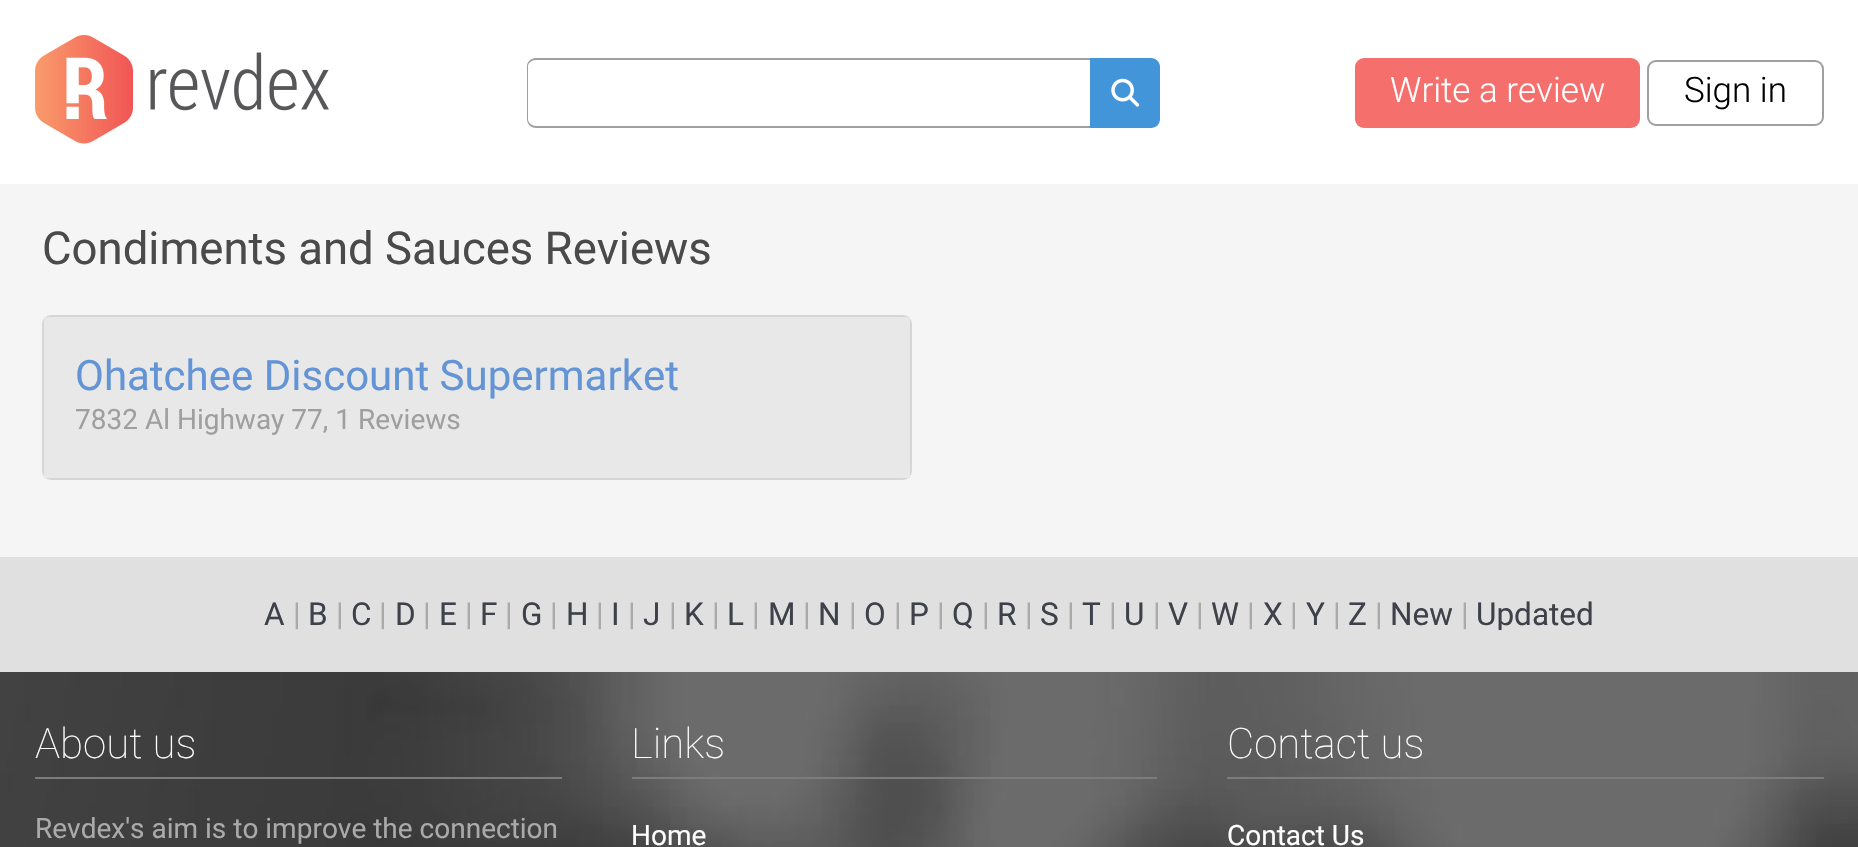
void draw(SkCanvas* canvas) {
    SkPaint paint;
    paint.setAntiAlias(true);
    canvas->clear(0xFFFFFFFF);
    canvas->drawImageRect(SkImages::DeferredFromEncodedData(SkData::MakeFromFileName("img1.png")), SkRect::MakeXYWH(35, 35, 294, 109), SkSamplingOptions());
    paint.setColor(0xFF9F9F9F);
    canvas->drawPath(SkPathBuilder(SkPathFillType::kEvenOdd).moveTo(536, 58).lineTo(1090, 58).lineTo(1090, 128).lineTo(536, 128).cubicTo(531, 128, 527, 124, 527, 119).lineTo(527, 66).cubicTo(527, 62, 531, 58, 536, 58).close().moveTo(536, 60).lineTo(1090, 60).lineTo(1090, 126).lineTo(536, 126).cubicTo(532, 126, 528, 123, 528, 119).lineTo(528, 66).cubicTo(528, 63, 532, 60, 536, 60).close().detach(), paint);
    paint.setColor(0xFF4295D9);
    canvas->drawPath(SkPathBuilder().moveTo(1090, 58).lineTo(1151, 58).cubicTo(1156, 58, 1160, 62, 1160, 67).lineTo(1160, 119).cubicTo(1160, 124, 1156, 128, 1151, 128).lineTo(1090, 128).close().detach(), paint);
    canvas->drawImageRect(SkImages::DeferredFromEncodedData(SkData::MakeFromFileName("img2.png")), SkRect::MakeXYWH(1111, 78, 29, 29), SkSamplingOptions());
    paint.setColor(0xFFF56F6C);
    canvas->drawRoundRect(SkRect::MakeXYWH(1355, 58, 285, 70), 9, 9, paint);
    SkFont font1(fontMgr->matchFamilyStyle("Roboto", SkFontStyle(300, SkFontStyle::kNormal_Width, SkFontStyle::kUpright_Slant)), 35);
    font1.setSubpixel(true);
    paint.setColor(0xFFFFFFFF);
    canvas->drawString("Write a review", 1390, 102, font1, paint);
    paint.setStyle(SkPaint::kStroke_Style);
    paint.setStrokeWidth(2);
    paint.setColor(0xFF9F9F9F);
    canvas->drawRoundRect(SkRect::MakeXYWH(1648, 61, 175, 64), 8, 8, paint);
    paint.setStyle(SkPaint::kFill_Style);
    paint.setColor(0xFF000000);
    canvas->drawString("Sign in", 1684, 102, font1, paint);
    paint.setColor(0xFFF5F5F5);
    canvas->drawRect(SkRect::MakeXYWH(0, 184, 1858, 373), paint);
    SkFont font2(fontMgr->matchFamilyStyle("Roboto", SkFontStyle::Normal()), 45.5f);
    font2.setSubpixel(true);
    paint.setColor(0xFF4A4A4A);
    canvas->drawString("Condiments and Sauces Reviews", 42, 264, font2, paint);
    paint.setStyle(SkPaint::kStroke_Style);
    paint.setColor(0xFFD6D6D6);
    canvas->drawRoundRect(SkRect::MakeXYWH(43, 316, 868, 163), 8, 8, paint);
    paint.setStyle(SkPaint::kFill_Style);
    paint.setColor(0xFFE8E8E8);
    canvas->drawRect(SkRect::MakeXYWH(44, 317, 866, 161), paint);
    SkFont font3(fontMgr->matchFamilyStyle("Roboto", SkFontStyle::Normal()), 42);
    font3.setSubpixel(true);
    paint.setColor(0xFF6394D6);
    canvas->drawString("Ohatchee Discount Supermarket", 75, 390, font3, paint);
    SkFont font4(fontMgr->matchFamilyStyle("Roboto", SkFontStyle::Normal()), 28);
    font4.setSubpixel(true);
    paint.setColor(0xFF9F9F9F);
    canvas->drawString("7832 Al Highway 77, 1 Reviews", 75, 429, font4, paint);
    paint.setColor(0xFFE0E0E0);
    canvas->drawRect(SkRect::MakeXYWH(0, 557, 1858, 115), paint);
    SkFont font5(fontMgr->matchFamilyStyle("Roboto", SkFontStyle::Normal()), 31.5f);
    font5.setSubpixel(true);
    paint.setColor(0xFF3E414A);
    canvas->drawString("A", 264, 625, font5, paint);
    paint.setColor(0xFFAAAAAA);
    canvas->drawString("|", 293, 625, font5, paint);
    paint.setColor(0xFF3E414A);
    canvas->drawString("B", 308, 625, font5, paint);
    paint.setColor(0xFFAAAAAA);
    canvas->drawString("|", 336, 625, font5, paint);
    paint.setColor(0xFF3E414A);
    canvas->drawString("C", 351, 625, font5, paint);
    paint.setColor(0xFFAAAAAA);
    canvas->drawString("|", 379, 625, font5, paint);
    paint.setColor(0xFF3E414A);
    canvas->drawString("D", 395, 625, font5, paint);
    paint.setColor(0xFFAAAAAA);
    canvas->drawString("|", 423, 625, font5, paint);
    paint.setColor(0xFF3E414A);
    canvas->drawString("E", 439, 625, font5, paint);
    paint.setColor(0xFFAAAAAA);
    canvas->drawString("|", 465, 625, font5, paint);
    paint.setColor(0xFF3E414A);
    canvas->drawString("F", 480, 625, font5, paint);
    paint.setColor(0xFFAAAAAA);
    canvas->drawString("|", 505, 625, font5, paint);
    paint.setColor(0xFF3E414A);
    canvas->drawString("G", 521, 625, font5, paint);
    paint.setColor(0xFFAAAAAA);
    canvas->drawString("|", 550, 625, font5, paint);
    paint.setColor(0xFF3E414A);
    canvas->drawString("H", 566, 625, font5, paint);
    paint.setColor(0xFFAAAAAA);
    canvas->drawString("|", 596, 625, font5, paint);
    paint.setColor(0xFF3E414A);
    canvas->drawString("I", 611, 625, font5, paint);
    paint.setColor(0xFFAAAAAA);
    canvas->drawString("|", 628, 625, font5, paint);
    paint.setColor(0xFF3E414A);
    canvas->drawString("J", 643, 625, font5, paint);
    paint.setColor(0xFFAAAAAA);
    canvas->drawString("|", 669, 625, font5, paint);
    paint.setColor(0xFF3E414A);
    canvas->drawString("K", 684, 625, font5, paint);
    paint.setColor(0xFFAAAAAA);
    canvas->drawString("|", 712, 625, font5, paint);
    paint.setColor(0xFF3E414A);
    canvas->drawString("L", 727, 625, font5, paint);
    paint.setColor(0xFFAAAAAA);
    canvas->drawString("|", 752, 625, font5, paint);
    paint.setColor(0xFF3E414A);
    canvas->drawString("M", 768, 625, font5, paint);
    paint.setColor(0xFFAAAAAA);
    canvas->drawString("|", 803, 625, font5, paint);
    paint.setColor(0xFF3E414A);
    canvas->drawString("N", 818, 625, font5, paint);
    paint.setColor(0xFFAAAAAA);
    canvas->drawString("|", 849, 625, font5, paint);
    paint.setColor(0xFF3E414A);
    canvas->drawString("O", 864, 625, font5, paint);
    paint.setColor(0xFFAAAAAA);
    canvas->drawString("|", 894, 625, font5, paint);
    paint.setColor(0xFF3E414A);
    canvas->drawString("P", 909, 625, font5, paint);
    paint.setColor(0xFFAAAAAA);
    canvas->drawString("|", 937, 625, font5, paint);
    paint.setColor(0xFF3E414A);
    canvas->drawString("Q", 952, 625, font5, paint);
    paint.setColor(0xFFAAAAAA);
    canvas->drawString("|", 982, 625, font5, paint);
    paint.setColor(0xFF3E414A);
    canvas->drawString("R", 997, 625, font5, paint);
    paint.setColor(0xFFAAAAAA);
    canvas->drawString("|", 1025, 625, font5, paint);
    paint.setColor(0xFF3E414A);
    canvas->drawString("S", 1040, 625, font5, paint);
    paint.setColor(0xFFAAAAAA);
    canvas->drawString("|", 1067, 625, font5, paint);
    paint.setColor(0xFF3E414A);
    canvas->drawString("T", 1082, 625, font5, paint);
    paint.setColor(0xFFAAAAAA);
    canvas->drawString("|", 1109, 625, font5, paint);
    paint.setColor(0xFF3E414A);
    canvas->drawString("U", 1124, 625, font5, paint);
    paint.setColor(0xFFAAAAAA);
    canvas->drawString("|", 1153, 625, font5, paint);
    paint.setColor(0xFF3E414A);
    canvas->drawString("V", 1168, 625, font5, paint);
    paint.setColor(0xFFAAAAAA);
    canvas->drawString("|", 1196, 625, font5, paint);
    paint.setColor(0xFF3E414A);
    canvas->drawString("W", 1211, 625, font5, paint);
    paint.setColor(0xFFAAAAAA);
    canvas->drawString("|", 1247, 625, font5, paint);
    paint.setColor(0xFF3E414A);
    canvas->drawString("X", 1263, 625, font5, paint);
    paint.setColor(0xFFAAAAAA);
    canvas->drawString("|", 1290, 625, font5, paint);
    paint.setColor(0xFF3E414A);
    canvas->drawString("Y", 1306, 625, font5, paint);
    paint.setColor(0xFFAAAAAA);
    canvas->drawString("|", 1333, 625, font5, paint);
    paint.setColor(0xFF3E414A);
    canvas->drawString("Z", 1348, 625, font5, paint);
    paint.setColor(0xFFAAAAAA);
    canvas->drawString("|", 1375, 625, font5, paint);
    paint.setColor(0xFF3E414A);
    canvas->drawString("New", 1390, 625, font5, paint);
    paint.setColor(0xFFAAAAAA);
    canvas->drawString("|", 1461, 625, font5, paint);
    canvas->save();
    canvas->clipRect(SkRect::MakeXYWH(42, 599, 1775, 31));
    paint.setColor(0xFF3E414A);
    canvas->drawString("Updated", 1476, 625, font5, paint);
    canvas->restore();
    canvas->drawImageRect(SkImages::DeferredFromEncodedData(SkData::MakeFromFileName("img3.png")), SkRect::MakeXYWH(0, 672, 1858, 175), SkSamplingOptions());
    SkFont font6(fontMgr->matchFamilyStyle("Roboto", SkFontStyle(100, SkFontStyle::kNormal_Width, SkFontStyle::kUpright_Slant)), 42);
    font6.setSubpixel(true);
    paint.setColor(0xFFFFFFFF);
    canvas->drawString("About us", 35, 758, font6, paint);
    paint.setColor(0xFF7C7C7C);
    canvas->drawRect(SkRect::MakeXYWH(35, 777, 527, 2), paint);
    paint.setColor(0xFFAAAAAA);
    canvas->drawString("Revdex's aim is to improve the connection", 35, 838, font4, paint);
    paint.setColor(0xFFFFFFFF);
    canvas->drawString("Links", 631, 758, font6, paint);
    paint.setColor(0xFF7C7C7C);
    canvas->drawRect(SkRect::MakeXYWH(632, 777, 525, 2), paint);
    paint.setColor(0xFFFFFFFF);
    canvas->drawString("Home", 631, 845, font4, paint);
    canvas->drawString("Contact us", 1227, 758, font6, paint);
    paint.setColor(0xFF7C7C7C);
    canvas->drawRect(SkRect::MakeXYWH(1227, 777, 597, 2), paint);
    paint.setColor(0xFFFFFFFF);
    canvas->drawString("Contact Us", 1227, 845, font4, paint);
}
